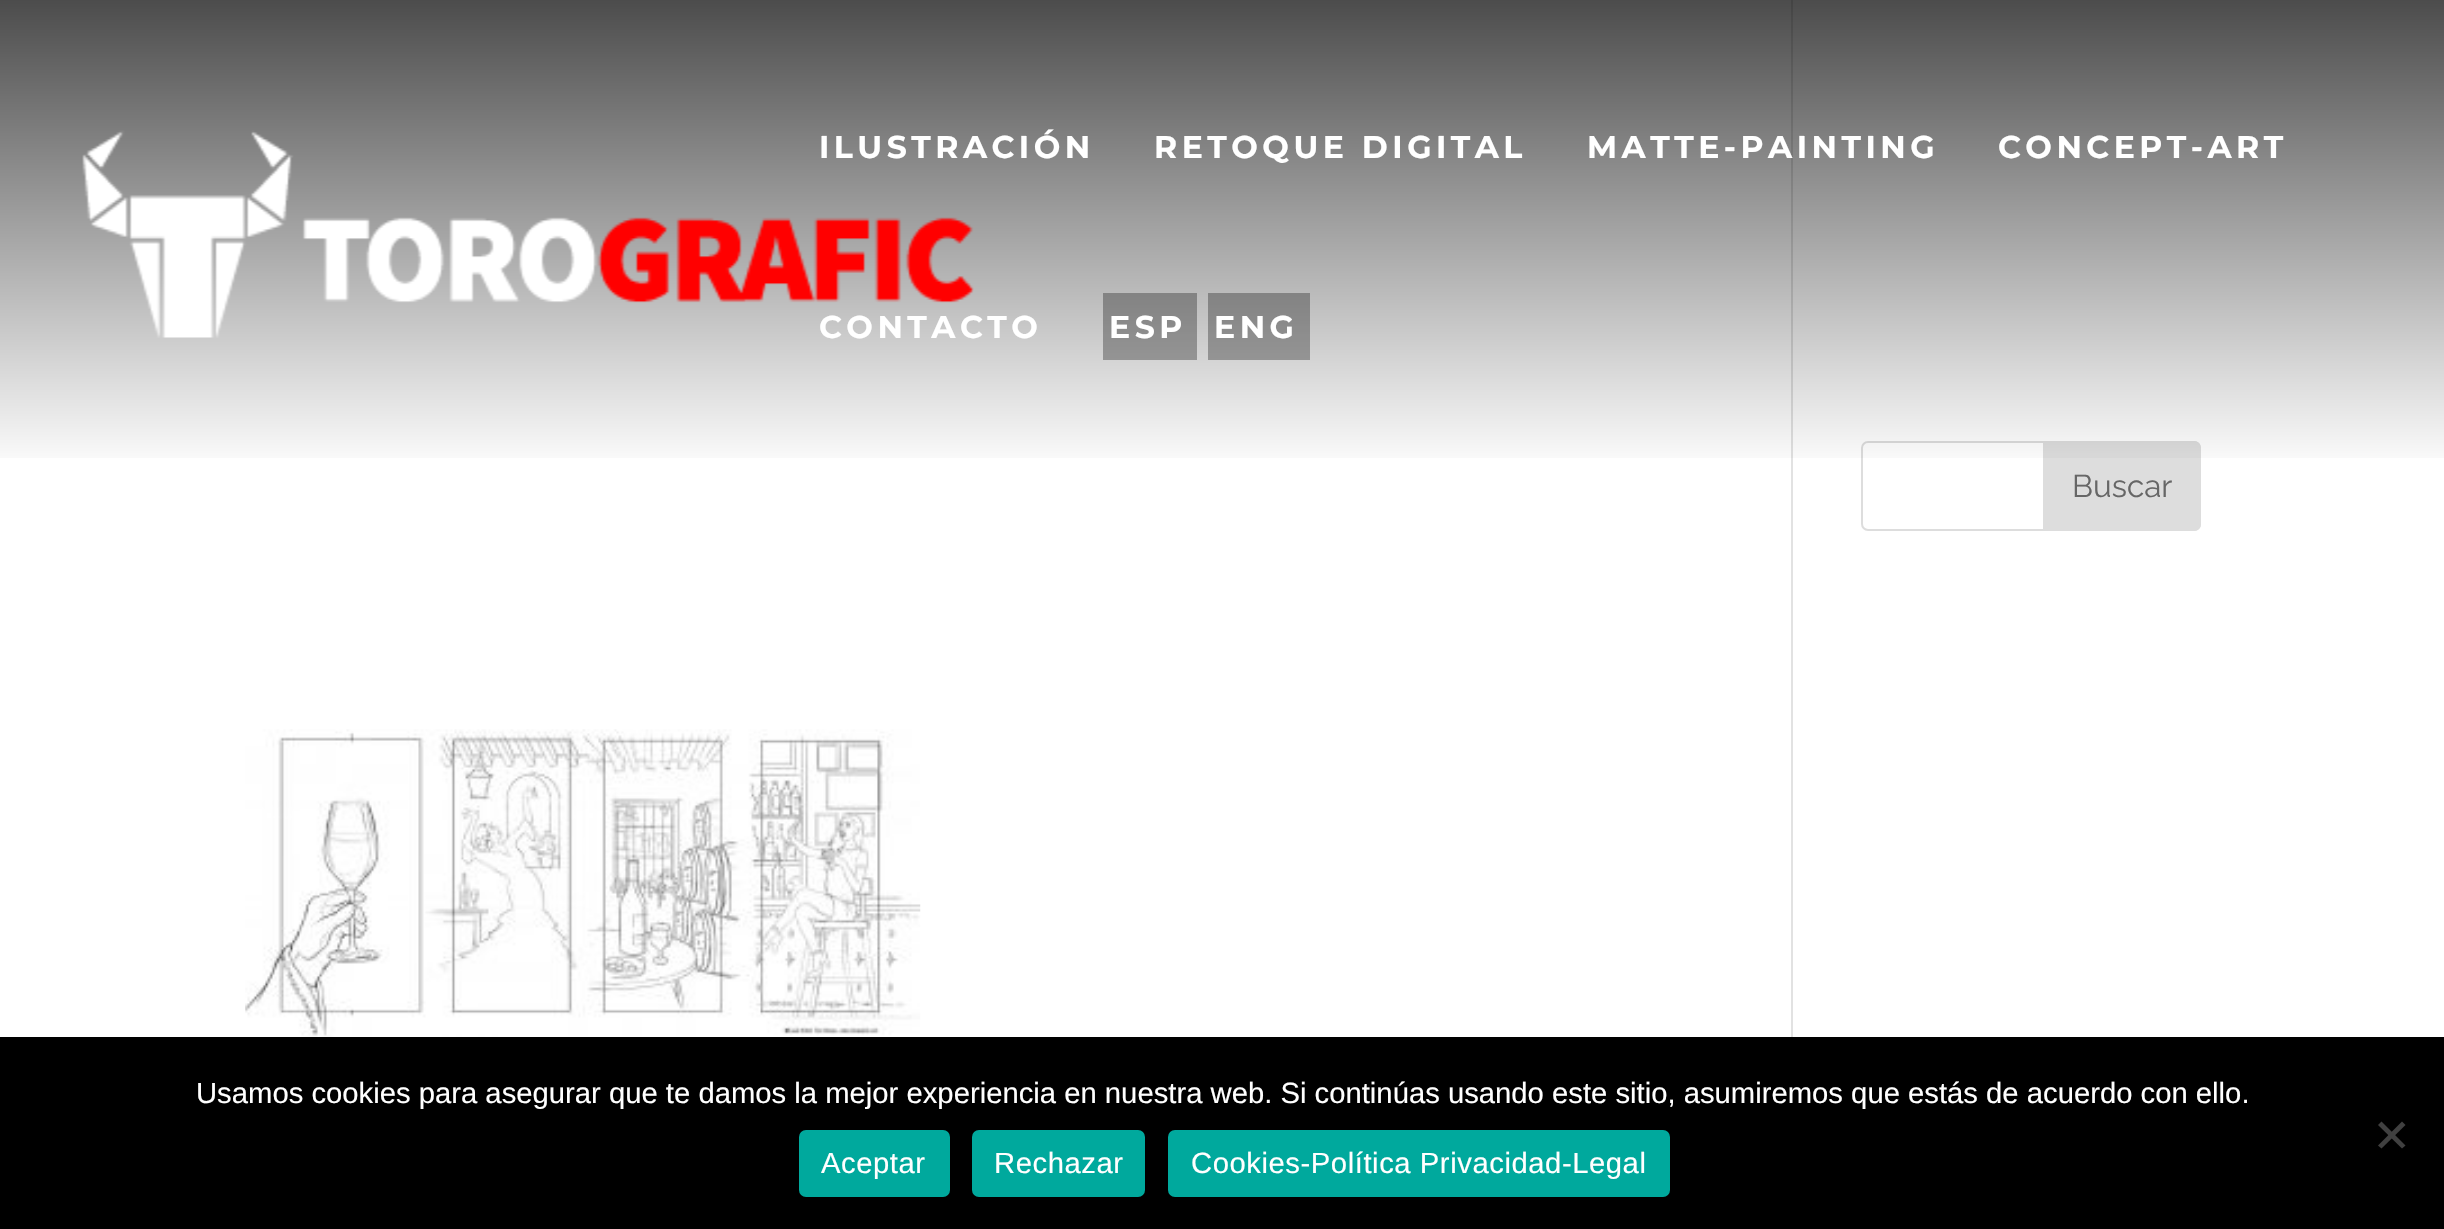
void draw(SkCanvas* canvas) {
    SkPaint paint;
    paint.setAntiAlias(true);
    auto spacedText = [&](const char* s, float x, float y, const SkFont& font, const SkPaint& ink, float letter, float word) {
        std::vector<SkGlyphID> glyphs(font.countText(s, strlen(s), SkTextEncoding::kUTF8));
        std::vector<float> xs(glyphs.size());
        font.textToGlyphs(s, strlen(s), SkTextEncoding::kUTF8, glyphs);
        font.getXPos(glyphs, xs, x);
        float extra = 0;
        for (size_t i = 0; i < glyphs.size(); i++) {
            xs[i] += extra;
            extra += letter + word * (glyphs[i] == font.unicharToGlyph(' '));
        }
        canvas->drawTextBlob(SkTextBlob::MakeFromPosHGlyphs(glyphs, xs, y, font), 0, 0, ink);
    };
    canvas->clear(0xFFFFFFFF);
    paint.setColor(0xFFE2E2E2);
    canvas->drawRect(SkRect::MakeXYWH(1791, 0, 2, 1037), paint);
    paint.setStyle(SkPaint::kStroke_Style);
    paint.setStrokeWidth(2);
    paint.setColor(0xFFDDDDDD);
    canvas->drawRoundRect(SkRect::MakeXYWH(1862, 442, 338, 88), 6, 6, paint);
    paint.setStyle(SkPaint::kFill_Style);
    canvas->drawPath(SkPathBuilder().moveTo(2044, 442).lineTo(2194, 442).cubicTo(2197.5f, 442, 2200, 444.5f, 2200, 448).lineTo(2200, 524).cubicTo(2200, 527.5f, 2197.5f, 530, 2194, 530).lineTo(2044, 530).close().detach(), paint);
    paint.setStyle(SkPaint::kStroke_Style);
    canvas->drawPath(SkPathBuilder().moveTo(2044, 442).lineTo(2194, 442).cubicTo(2197.5f, 442, 2200, 444.5f, 2200, 448).lineTo(2200, 524).cubicTo(2200, 527.5f, 2197.5f, 530, 2194, 530).lineTo(2044, 530).close().detach(), paint);
    paint.setStyle(SkPaint::kFill_Style);
    {
        const SkColor colors[] = {0xB3000000, 0x00000000};
        const float stops[] = {0, 1};
        const SkPoint ends[] = {{1223, 0}, {1223, 473}};
        paint.setShader(SkGradientShader::MakeLinear(ends, colors, stops, 2, SkTileMode::kClamp));
        paint.setAlpha(255);
    }
    canvas->drawRect(SkRect::MakeXYWH(0, 0, 2444, 458), paint);
    canvas->drawImageRect(SkImages::DeferredFromEncodedData(SkData::MakeFromFileName("img1.png")), SkRect::MakeXYWH(82, 130, 892, 208), SkSamplingOptions());
    SkFont font1(fontMgr->matchFamilyStyle("Montserrat", SkFontStyle::Bold()), 31.5f);
    font1.setSubpixel(true);
    paint.setShader(nullptr);
    paint.setColor(0xFFFFFFFF);
    spacedText("ILUSTRACIÓN", 819, 158, font1, paint, 4.5f, 0);
    spacedText("RETOQUE DIGITAL", 1154, 158, font1, paint, 4.5f, 0);
    spacedText("MATTE-PAINTING", 1587, 158, font1, paint, 4.5f, 0);
    spacedText("CONCEPT-ART", 1998, 158, font1, paint, 4.5f, 0);
    spacedText("CONTACTO", 819, 338, font1, paint, 4.5f, 0);
    paint.setColor(0x4D000000);
    canvas->drawRect(SkRect::MakeXYWH(1103, 293, 94, 67), paint);
    paint.setColor(0xFFFFFFFF);
    spacedText("ESP", 1109, 338, font1, paint, 4.5f, 0);
    paint.setColor(0x4D000000);
    canvas->drawRect(SkRect::MakeXYWH(1208, 293, 102, 67), paint);
    paint.setColor(0xFFFFFFFF);
    spacedText("ENG", 1214, 338, font1, paint, 4.5f, 0);
    SkFont font2(fontMgr->matchFamilyStyle("Raleway", SkFontStyle::Normal()), 31.5f);
    font2.setSubpixel(true);
    paint.setColor(0xFF666666);
    canvas->drawString("Buscar", 2072, 497, font2, paint);
    canvas->drawImageRect(SkImages::DeferredFromEncodedData(SkData::MakeFromFileName("img2.png")), SkRect::MakeXYWH(245, 729, 676, 308), SkSamplingOptions());
    paint.setColor(0xFF000000);
    canvas->drawRect(SkRect::MakeXYWH(0, 1037, 2444, 192), paint);
    SkFont font3(fontMgr->matchFamilyStyle("Liberation Sans", SkFontStyle::Normal()), 29.25f);
    font3.setSubpixel(true);
    paint.setColor(0xFFFFFFFF);
    canvas->drawString("Usamos cookies para asegurar que te damos la mejor experiencia en nuestra web. Si continúas usando este sitio, asumiremos que estás de acuerdo con ello.", 196, 1103, font3, paint);
    paint.setColor(0xFF404040);
    canvas->drawPath(SkPathBuilder().moveTo(2402, 1121.5f).lineTo(2405.5f, 1125).lineTo(2381.5f, 1148.5f).lineTo(2378, 1145.5f).close().detach(), paint);
    canvas->drawPath(SkPathBuilder().moveTo(2378, 1125).lineTo(2381.5f, 1121.5f).lineTo(2405.5f, 1145.5f).lineTo(2402, 1148.5f).close().detach(), paint);
    paint.setColor(0xFF00A99D);
    canvas->drawRoundRect(SkRect::MakeXYWH(799, 1130, 151, 67), 7, 7, paint);
    paint.setColor(0xFFFFFFFF);
    spacedText("Aceptar", 821, 1173, font3, paint, 0.55f, 0);
    paint.setColor(0xFF00A99D);
    canvas->drawRoundRect(SkRect::MakeXYWH(972, 1130, 173, 67), 7, 7, paint);
    paint.setColor(0xFFFFFFFF);
    spacedText("Rechazar", 994, 1173, font3, paint, 0.55f, 0);
    paint.setColor(0xFF00A99D);
    canvas->drawRoundRect(SkRect::MakeXYWH(1168, 1130, 502, 67), 7, 7, paint);
    paint.setColor(0xFFFFFFFF);
    spacedText("Cookies-Política Privacidad-Legal", 1191, 1173, font3, paint, 0.55f, 0);
}
